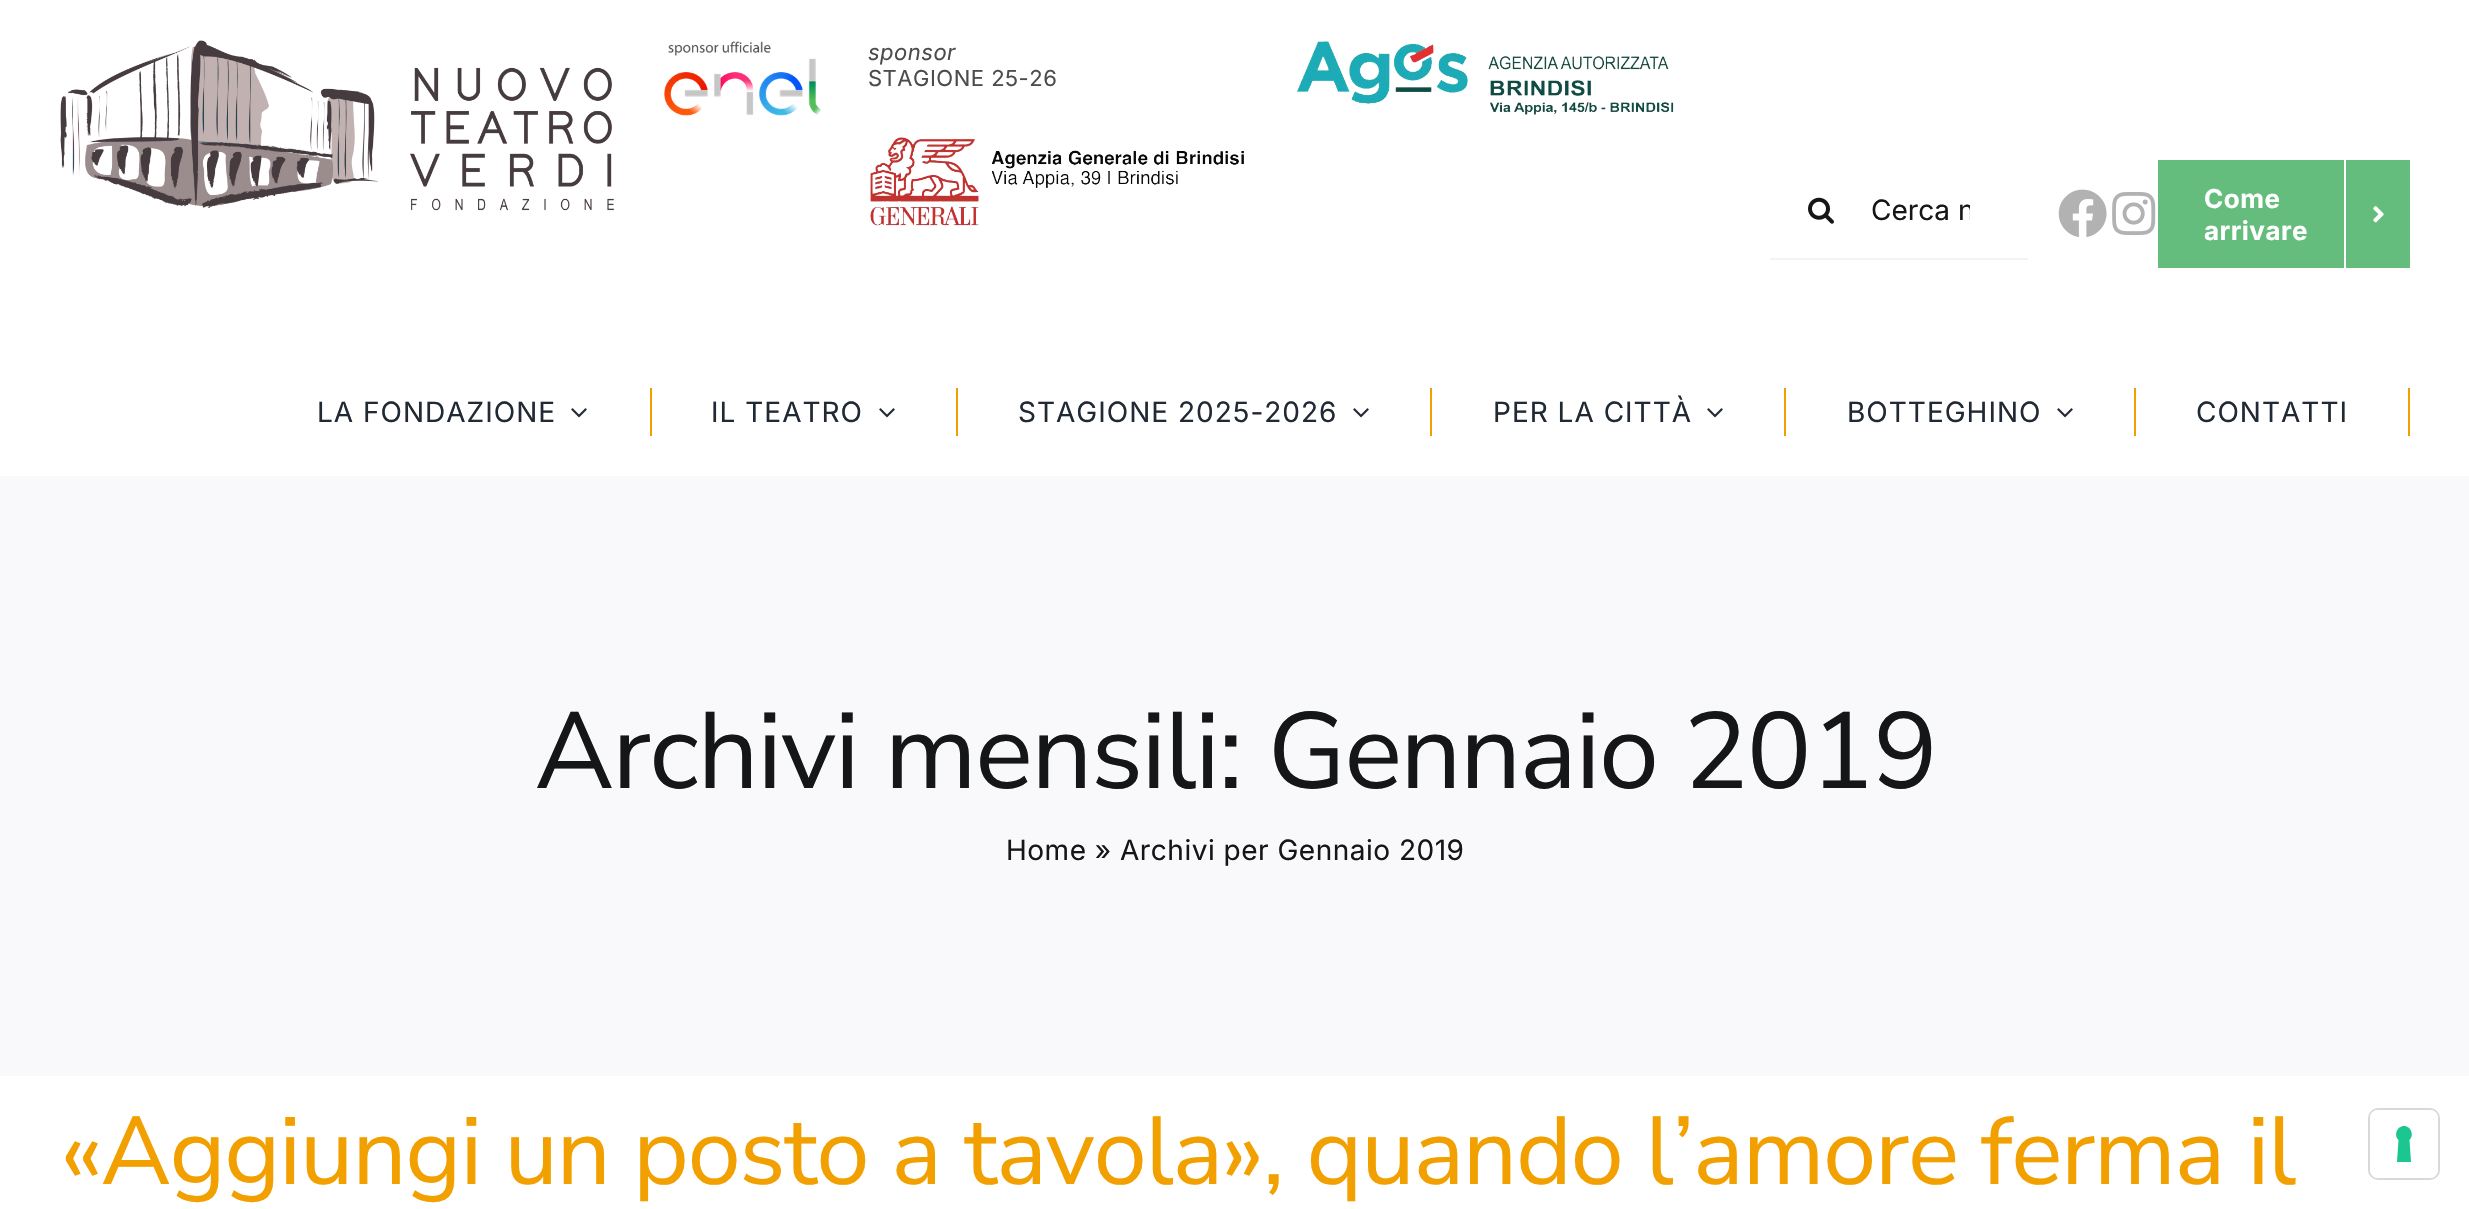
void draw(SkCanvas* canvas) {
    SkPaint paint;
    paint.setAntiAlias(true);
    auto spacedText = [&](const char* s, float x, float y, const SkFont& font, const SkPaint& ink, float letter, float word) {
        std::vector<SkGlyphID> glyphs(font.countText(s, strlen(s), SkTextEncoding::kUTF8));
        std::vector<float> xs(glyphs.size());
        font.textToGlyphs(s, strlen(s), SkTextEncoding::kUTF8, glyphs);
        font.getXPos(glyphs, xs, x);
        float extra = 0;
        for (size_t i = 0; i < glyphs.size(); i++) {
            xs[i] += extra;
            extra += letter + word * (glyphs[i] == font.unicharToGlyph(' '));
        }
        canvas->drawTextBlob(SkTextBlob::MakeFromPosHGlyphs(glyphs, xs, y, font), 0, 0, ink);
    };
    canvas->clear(0xFFFFFFFF);
    canvas->drawImageRect(SkImages::DeferredFromEncodedData(SkData::MakeFromFileName("img1.png")), SkRect::MakeXYWH(60, 40, 554, 171), SkSamplingOptions());
    canvas->drawImageRect(SkImages::DeferredFromEncodedData(SkData::MakeFromFileName("img2.png")), SkRect::MakeXYWH(664, 41, 157, 75), SkSamplingOptions());
    SkFont font1(fontMgr->matchFamilyStyle("Inter", SkFontStyle::Italic()), 22);
    font1.setSubpixel(true);
    paint.setColor(0xFF4C4C4C);
    spacedText("sponsor", 868, 60, font1, paint, 0.5f, 0);
    SkFont font2(fontMgr->matchFamilyStyle("Inter", SkFontStyle::Normal()), 22);
    font2.setSubpixel(true);
    spacedText("STAGIONE 25-26", 868, 86, font2, paint, 0.5f, 0);
    canvas->drawImageRect(SkImages::DeferredFromEncodedData(SkData::MakeFromFileName("img3.png")), SkRect::MakeXYWH(1296, 41, 378, 74), SkSamplingOptions());
    canvas->drawImageRect(SkImages::DeferredFromEncodedData(SkData::MakeFromFileName("img4.png")), SkRect::MakeXYWH(870, 137, 374, 89), SkSamplingOptions());
    canvas->drawImageRect(SkImages::DeferredFromEncodedData(SkData::MakeFromFileName("img5.png")), SkRect::MakeXYWH(1808, 197, 26, 27), SkSamplingOptions());
    paint.setColor(0xFFF2F3F5);
    canvas->drawRect(SkRect::MakeXYWH(1770, 258, 258, 2), paint);
    canvas->save();
    canvas->clipRect(SkRect::MakeXYWH(1870, 192, 100, 34));
    SkFont font3(fontMgr->matchFamilyStyle("Inter", SkFontStyle::Normal()), 28);
    font3.setSubpixel(true);
    paint.setColor(0xFF141617);
    canvas->drawString("Cerca n", 1871, 220, font3, paint);
    canvas->restore();
    canvas->drawImageRect(SkImages::DeferredFromEncodedData(SkData::MakeFromFileName("img6.png")), SkRect::MakeXYWH(2058, 189, 49, 48), SkSamplingOptions());
    canvas->drawImageRect(SkImages::DeferredFromEncodedData(SkData::MakeFromFileName("img7.png")), SkRect::MakeXYWH(2112, 191, 44, 45), SkSamplingOptions());
    paint.setColor(0xFF65BD7D);
    canvas->drawRect(SkRect::MakeXYWH(2158, 160, 252, 108), paint);
    SkFont font4(fontMgr->matchFamilyStyle("Inter", SkFontStyle::Bold()), 26);
    font4.setSubpixel(true);
    paint.setColor(0xFFFFFFFF);
    spacedText("Come", 2204, 208, font4, paint, 0.5f, 0);
    spacedText("arrivare", 2204, 240, font4, paint, 0.5f, 0);
    canvas->drawRect(SkRect::MakeXYWH(2344, 160, 2, 108), paint);
    canvas->drawImageRect(SkImages::DeferredFromEncodedData(SkData::MakeFromFileName("img8.png")), SkRect::MakeXYWH(2373, 206, 11, 17), SkSamplingOptions());
    paint.setColor(0xFF212934);
    spacedText("LA FONDAZIONE", 317, 422, font3, paint, 1, 0);
    canvas->drawImageRect(SkImages::DeferredFromEncodedData(SkData::MakeFromFileName("img9.png")), SkRect::MakeXYWH(571, 408, 16, 10), SkSamplingOptions());
    paint.setColor(0xFFF29F00);
    canvas->drawRect(SkRect::MakeXYWH(650, 388, 2, 48), paint);
    paint.setColor(0xFF212934);
    spacedText("IL TEATRO", 711, 422, font3, paint, 1, 0);
    canvas->drawImageRect(SkImages::DeferredFromEncodedData(SkData::MakeFromFileName("img9.png")), SkRect::MakeXYWH(879, 408, 16, 10), SkSamplingOptions());
    paint.setColor(0xFFF29F00);
    canvas->drawRect(SkRect::MakeXYWH(956, 388, 2, 48), paint);
    paint.setColor(0xFF212934);
    spacedText("STAGIONE 2025-2026", 1018, 422, font3, paint, 1, 0);
    canvas->drawImageRect(SkImages::DeferredFromEncodedData(SkData::MakeFromFileName("img9.png")), SkRect::MakeXYWH(1353, 408, 16, 10), SkSamplingOptions());
    paint.setColor(0xFFF29F00);
    canvas->drawRect(SkRect::MakeXYWH(1430, 388, 2, 48), paint);
    paint.setColor(0xFF212934);
    spacedText("PER LA CITTÀ", 1493, 422, font3, paint, 1, 0);
    canvas->drawImageRect(SkImages::DeferredFromEncodedData(SkData::MakeFromFileName("img9.png")), SkRect::MakeXYWH(1707, 408, 16, 10), SkSamplingOptions());
    paint.setColor(0xFFF29F00);
    canvas->drawRect(SkRect::MakeXYWH(1784, 388, 2, 48), paint);
    paint.setColor(0xFF212934);
    spacedText("BOTTEGHINO", 1847, 422, font3, paint, 1, 0);
    canvas->drawImageRect(SkImages::DeferredFromEncodedData(SkData::MakeFromFileName("img9.png")), SkRect::MakeXYWH(2057, 408, 16, 10), SkSamplingOptions());
    paint.setColor(0xFFF29F00);
    canvas->drawRect(SkRect::MakeXYWH(2134, 388, 2, 48), paint);
    paint.setColor(0xFF212934);
    spacedText("CONTATTI", 2196, 422, font3, paint, 1, 0);
    paint.setColor(0xFFF29F00);
    canvas->drawRect(SkRect::MakeXYWH(2408, 388, 2, 48), paint);
    paint.setColor(0xFFF9F9FB);
    canvas->drawRect(SkRect::MakeXYWH(0, 476, 2469, 600), paint);
    SkFont font5(fontMgr->matchFamilyStyle("Nunito Sans", SkFontStyle(200, SkFontStyle::kNormal_Width, SkFontStyle::kUpright_Slant)), 108);
    font5.setSubpixel(true);
    paint.setColor(0xFF141617);
    spacedText("Archivi mensili: Gennaio 2019", 535, 788, font5, paint, -1.6f, 0);
    spacedText("Home » Archivi per Gennaio 2019", 1006, 860, font3, paint, 0.5f, 0);
    SkFont font6(fontMgr->matchFamilyStyle("Nunito Sans", SkFontStyle(200, SkFontStyle::kNormal_Width, SkFontStyle::kUpright_Slant)), 96);
    font6.setSubpixel(true);
    paint.setColor(0xFFF29F00);
    spacedText("«Aggiungi un posto a tavola», quando l’amore ferma il", 60, 1184, font6, paint, -1.45f, 0);
    paint.setStyle(SkPaint::kStroke_Style);
    paint.setStrokeWidth(2);
    paint.setColor(0xFFD9D9D9);
    canvas->drawRoundRect(SkRect::MakeXYWH(2369, 1109, 70, 70), 9, 9, paint);
    paint.setStyle(SkPaint::kFill_Style);
    paint.setColor(0xFFFFFFFF);
    canvas->drawRoundRect(SkRect::MakeXYWH(2370, 1110, 68, 68), 8, 8, paint);
    paint.setColor(0xFF1CC691);
    canvas->drawPath(SkPathBuilder(SkPathFillType::kEvenOdd).moveTo(2404, 1126).cubicTo(2411, 1126, 2414.5f, 1135.5f, 2409.5f, 1140).lineTo(2411, 1162).lineTo(2397, 1162).lineTo(2398.5f, 1140).cubicTo(2393.5f, 1135.5f, 2397, 1126, 2404, 1126).close().detach(), paint);
}
